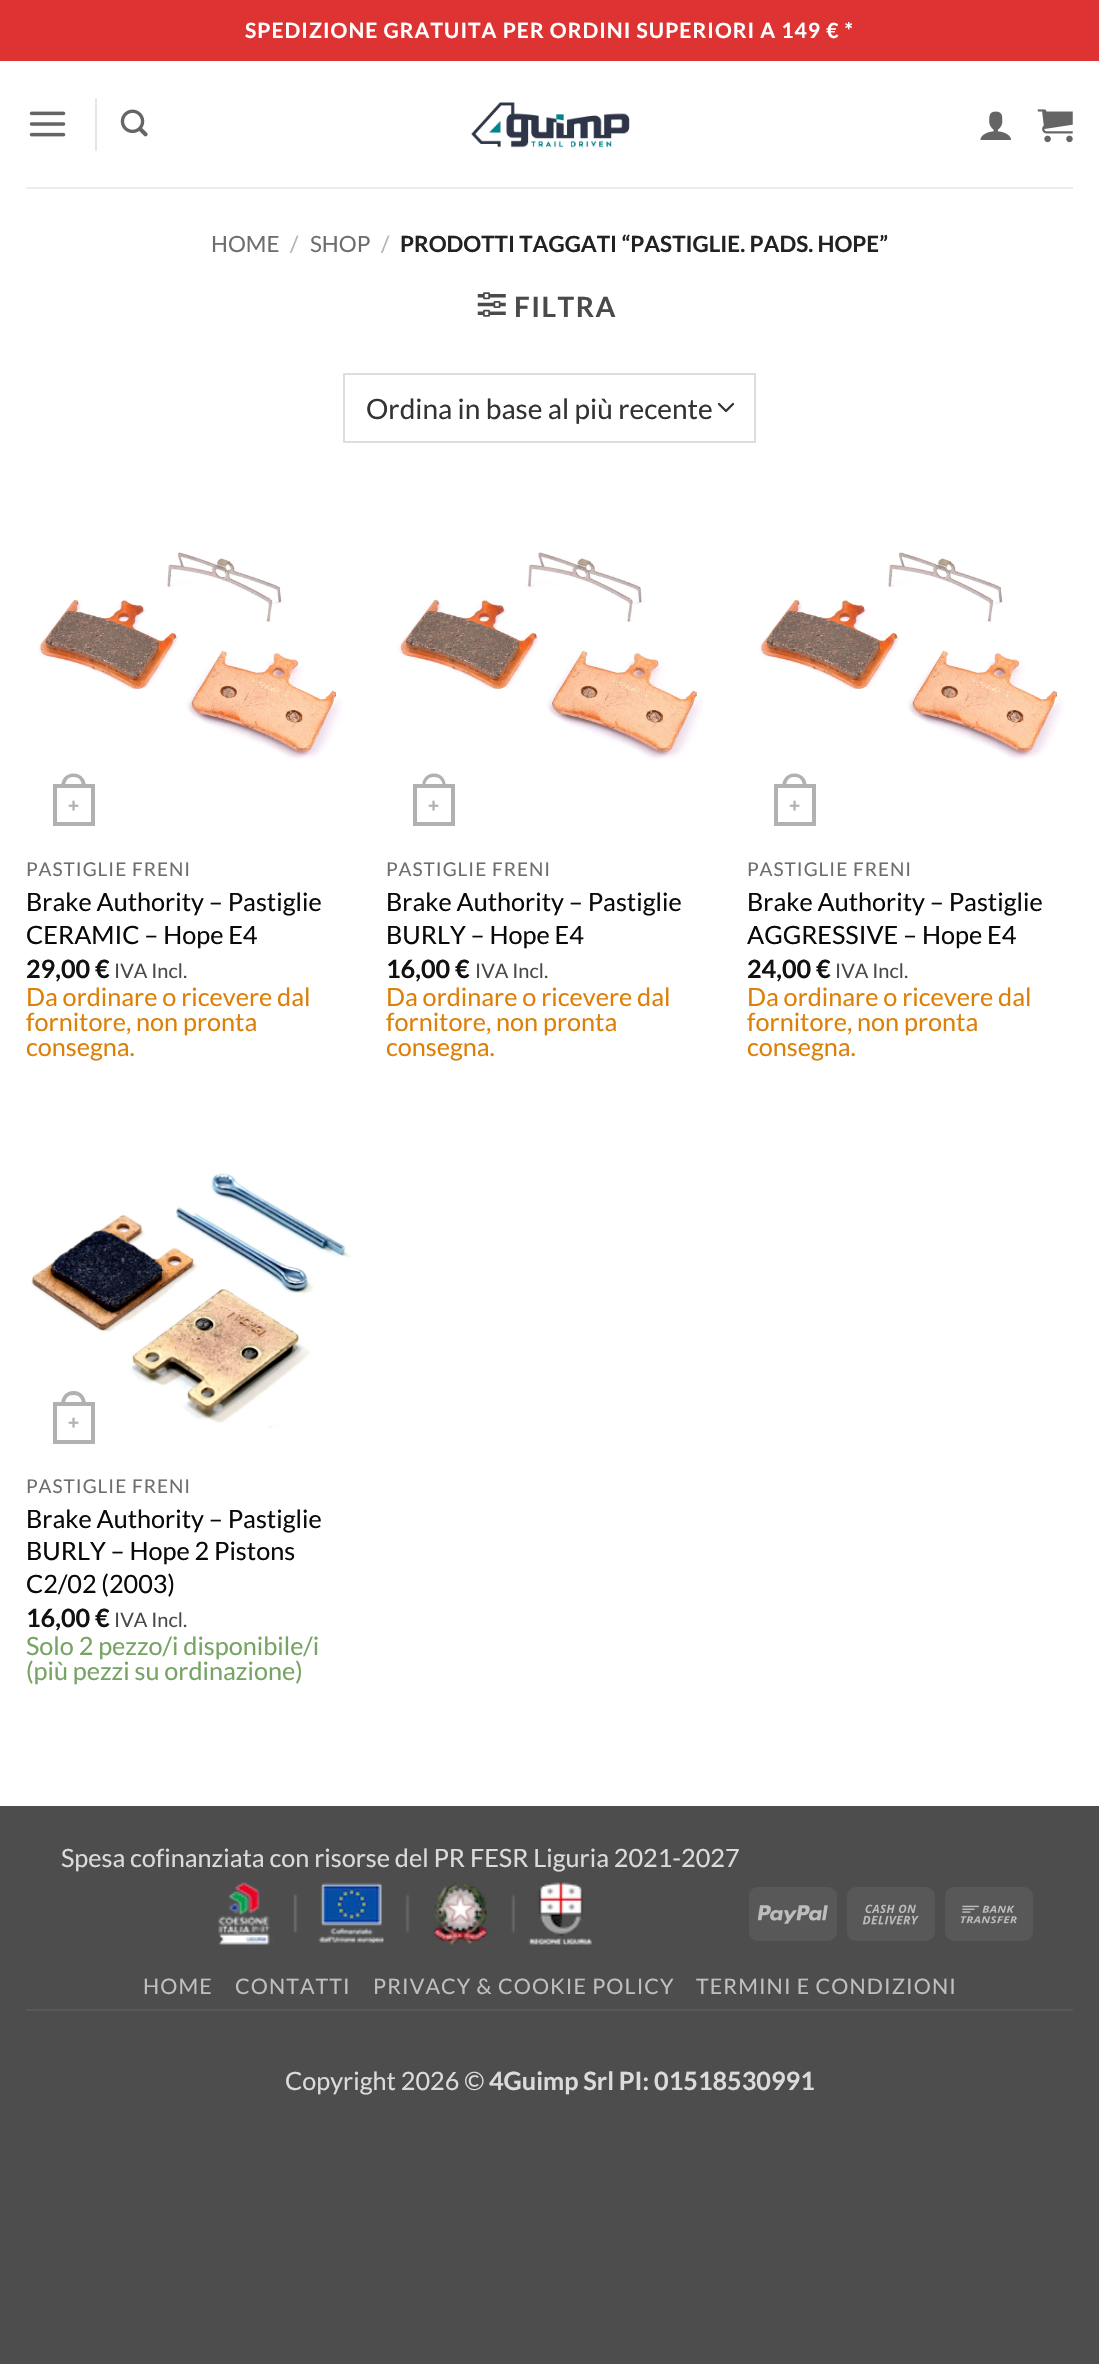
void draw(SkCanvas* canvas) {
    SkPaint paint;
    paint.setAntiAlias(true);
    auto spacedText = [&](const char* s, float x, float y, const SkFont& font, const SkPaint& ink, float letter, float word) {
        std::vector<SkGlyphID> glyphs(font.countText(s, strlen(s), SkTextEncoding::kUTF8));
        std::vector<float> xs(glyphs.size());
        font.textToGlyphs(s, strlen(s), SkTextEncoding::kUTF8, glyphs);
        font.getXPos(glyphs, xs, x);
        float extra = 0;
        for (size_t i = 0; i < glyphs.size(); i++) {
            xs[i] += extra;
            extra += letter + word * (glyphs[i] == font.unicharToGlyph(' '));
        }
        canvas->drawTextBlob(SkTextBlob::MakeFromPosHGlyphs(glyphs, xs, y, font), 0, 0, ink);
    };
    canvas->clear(0xFF4D4D4D);
    paint.setColor(0xFFFFFFFF);
    canvas->drawRect(SkRect::MakeXYWH(0, 61, 1099, 1745), paint);
    paint.setColor(0xFFDD3333);
    canvas->drawRect(SkRect::MakeXYWH(0, 0, 1099, 61), paint);
    SkFont font1(fontMgr->matchFamilyStyle("Lato", SkFontStyle::Bold()), 21);
    font1.setSubpixel(true);
    paint.setColor(0xFFFFFFFF);
    spacedText("SPEDIZIONE GRATUITA PER ORDINI SUPERIORI A 149 € *", 245, 38, font1, paint, 1.05f, 0);
    canvas->drawImageRect(SkImages::DeferredFromEncodedData(SkData::MakeFromFileName("img1.png")), SkRect::MakeXYWH(29, 111, 37, 26), SkSamplingOptions());
    paint.setColor(0xFFE6E6E6);
    canvas->drawRect(SkRect::MakeXYWH(95, 98, 2, 53), paint);
    canvas->drawImageRect(SkImages::DeferredFromEncodedData(SkData::MakeFromFileName("img2.png")), SkRect::MakeXYWH(120, 109, 28, 28), SkSamplingOptions());
    canvas->drawImageRect(SkImages::DeferredFromEncodedData(SkData::MakeFromFileName("img3.png")), SkRect::MakeXYWH(471, 102, 159, 46), SkSamplingOptions());
    canvas->drawImageRect(SkImages::DeferredFromEncodedData(SkData::MakeFromFileName("img4.png")), SkRect::MakeXYWH(980, 111, 31, 29), SkSamplingOptions());
    canvas->drawImageRect(SkImages::DeferredFromEncodedData(SkData::MakeFromFileName("img5.png")), SkRect::MakeXYWH(1037, 109, 36, 34), SkSamplingOptions());
    paint.setColor(0xFFEDEDED);
    canvas->drawRect(SkRect::MakeXYWH(26, 187, 1047, 2), paint);
    SkFont font2(fontMgr->matchFamilyStyle("Lato", SkFontStyle::Normal()), 22.4f);
    font2.setSubpixel(true);
    paint.setColor(0xFF6E6E6E);
    canvas->drawString("HOME", 211, 252, font2, paint);
    paint.setColor(0xFFB2B2B2);
    canvas->drawString("/", 290, 252, font2, paint);
    paint.setColor(0xFF6E6E6E);
    canvas->drawString("SHOP", 310, 252, font2, paint);
    paint.setColor(0xFFB2B2B2);
    canvas->drawString("/", 381, 252, font2, paint);
    SkFont font3(fontMgr->matchFamilyStyle("Lato", SkFontStyle::Bold()), 22.4f);
    font3.setSubpixel(true);
    paint.setColor(0xFF222222);
    canvas->drawString("PRODOTTI TAGGATI “PASTIGLIE. PADS. HOPE”", 400, 252, font3, paint);
    canvas->drawImageRect(SkImages::DeferredFromEncodedData(SkData::MakeFromFileName("img6.png")), SkRect::MakeXYWH(477, 292, 29, 25), SkSamplingOptions());
    SkFont font4(fontMgr->matchFamilyStyle("Lato", SkFontStyle::Bold()), 28);
    font4.setSubpixel(true);
    paint.setColor(0xFF4A4A4A);
    spacedText("FILTRA", 514, 317, font4, paint, 1.5f, 0);
    paint.setStyle(SkPaint::kStroke_Style);
    paint.setStrokeWidth(2.3f);
    paint.setStrokeCap(SkPaint::kRound_Cap);
    paint.setStrokeJoin(SkPaint::kRound_Join);
    paint.setColor(0xFF333333);
    canvas->drawPath(SkPathBuilder().moveTo(719, 404).lineTo(726, 411).lineTo(733, 404).detach(), paint);
    paint.setStrokeWidth(2);
    paint.setStrokeCap(SkPaint::kButt_Cap);
    paint.setStrokeJoin(SkPaint::kMiter_Join);
    paint.setColor(0xFFDDDDDD);
    canvas->drawRect(SkRect::MakeXYWH(344, 374, 411, 68), paint);
    SkFont font5(fontMgr->matchFamilyStyle("Lato", SkFontStyle::Normal()), 28);
    font5.setSubpixel(true);
    paint.setStyle(SkPaint::kFill_Style);
    paint.setColor(0xFF333333);
    canvas->drawString("Ordina in base al più recente", 366, 419, font5, paint);
    canvas->drawImageRect(SkImages::DeferredFromEncodedData(SkData::MakeFromFileName("img7.png")), SkRect::MakeXYWH(32, 552, 311, 208), SkSamplingOptions());
    paint.setStyle(SkPaint::kStroke_Style);
    paint.setStrokeWidth(4);
    paint.setColor(0xFFB1B1B1);
    canvas->drawRect(SkRect::MakeXYWH(55, 786, 38, 38), paint);
    paint.setStyle(SkPaint::kFill_Style);
    canvas->drawPath(SkPathBuilder(SkPathFillType::kEvenOdd).moveTo(73.5f, 773.5f).cubicTo(82, 773.5f, 86, 780, 86, 787.5f).lineTo(61, 787.5f).cubicTo(61, 780, 65, 773.5f, 73.5f, 773.5f).close().moveTo(73.5f, 777).cubicTo(80, 777, 82, 782, 82, 787.5f).lineTo(65, 787.5f).cubicTo(65, 782, 67, 777, 73.5f, 777).close().detach(), paint);
    SkFont font6(fontMgr->matchFamilyStyle("Liberation Sans", SkFontStyle::Bold()), 19);
    font6.setSubpixel(true);
    paint.setColor(0xFFB2B2B2);
    canvas->drawString("+", 68, 812, font6, paint);
    SkFont font7(fontMgr->matchFamilyStyle("Lato", SkFontStyle::Normal()), 19);
    font7.setSubpixel(true);
    paint.setColor(0xFF6E6E6E);
    spacedText("PASTIGLIE FRENI", 26, 876, font7, paint, 1, 0);
    SkFont font8(fontMgr->matchFamilyStyle("Lato", SkFontStyle::Normal()), 25.2f);
    font8.setSubpixel(true);
    paint.setColor(0xFF090909);
    canvas->drawString("Brake Authority – Pastiglie", 26, 911, font8, paint);
    canvas->drawString("CERAMIC – Hope E4", 26, 944, font8, paint);
    SkFont font9(fontMgr->matchFamilyStyle("Lato", SkFontStyle::Bold()), 25.2f);
    font9.setSubpixel(true);
    paint.setColor(0xFF111111);
    canvas->drawString("29,00 €", 26, 978, font9, paint);
    SkFont font10(fontMgr->matchFamilyStyle("Lato", SkFontStyle::Normal()), 20);
    font10.setSubpixel(true);
    paint.setColor(0xFF4A4A4A);
    canvas->drawString("IVA Incl.", 114, 978, font10, paint);
    paint.setColor(0xFFDD8008);
    canvas->drawString("Da ordinare o ricevere dal", 26, 1006, font8, paint);
    canvas->drawString("fornitore, non pronta", 26, 1031, font8, paint);
    canvas->drawString("consegna.", 26, 1056, font8, paint);
    canvas->drawImageRect(SkImages::DeferredFromEncodedData(SkData::MakeFromFileName("img8.png")), SkRect::MakeXYWH(397, 552, 306, 208), SkSamplingOptions());
    paint.setStyle(SkPaint::kStroke_Style);
    paint.setColor(0xFFB1B1B1);
    canvas->drawRect(SkRect::MakeXYWH(415, 786, 38, 38), paint);
    paint.setStyle(SkPaint::kFill_Style);
    canvas->drawPath(SkPathBuilder(SkPathFillType::kEvenOdd).moveTo(434, 773.5f).cubicTo(442.5f, 773.5f, 446, 780, 446, 787.5f).lineTo(422, 787.5f).cubicTo(422, 780, 425.5f, 773.5f, 434, 773.5f).close().moveTo(434, 777).cubicTo(440.5f, 777, 443, 782, 443, 787.5f).lineTo(425, 787.5f).cubicTo(425, 782, 427.5f, 777, 434, 777).close().detach(), paint);
    paint.setColor(0xFFB2B2B2);
    canvas->drawString("+", 428, 812, font6, paint);
    paint.setColor(0xFF6E6E6E);
    spacedText("PASTIGLIE FRENI", 386, 876, font7, paint, 1, 0);
    paint.setColor(0xFF090909);
    canvas->drawString("Brake Authority – Pastiglie", 386, 911, font8, paint);
    canvas->drawString("BURLY – Hope E4", 386, 944, font8, paint);
    paint.setColor(0xFF111111);
    canvas->drawString("16,00 €", 386, 978, font9, paint);
    paint.setColor(0xFF4A4A4A);
    canvas->drawString("IVA Incl.", 475, 978, font10, paint);
    paint.setColor(0xFFDD8008);
    canvas->drawString("Da ordinare o ricevere dal", 386, 1006, font8, paint);
    canvas->drawString("fornitore, non pronta", 386, 1031, font8, paint);
    canvas->drawString("consegna.", 386, 1056, font8, paint);
    canvas->drawImageRect(SkImages::DeferredFromEncodedData(SkData::MakeFromFileName("img7.png")), SkRect::MakeXYWH(753, 552, 311, 208), SkSamplingOptions());
    paint.setStyle(SkPaint::kStroke_Style);
    paint.setColor(0xFFB1B1B1);
    canvas->drawRect(SkRect::MakeXYWH(776, 786, 38, 38), paint);
    paint.setStyle(SkPaint::kFill_Style);
    canvas->drawPath(SkPathBuilder(SkPathFillType::kEvenOdd).moveTo(794.5f, 773.5f).cubicTo(803, 773.5f, 807, 780, 807, 787.5f).lineTo(782, 787.5f).cubicTo(782, 780, 786, 773.5f, 794.5f, 773.5f).close().moveTo(794.5f, 777).cubicTo(801, 777, 803, 782, 803, 787.5f).lineTo(786, 787.5f).cubicTo(786, 782, 788, 777, 794.5f, 777).close().detach(), paint);
    paint.setColor(0xFFB2B2B2);
    canvas->drawString("+", 789, 812, font6, paint);
    paint.setColor(0xFF6E6E6E);
    spacedText("PASTIGLIE FRENI", 747, 876, font7, paint, 1, 0);
    paint.setColor(0xFF090909);
    canvas->drawString("Brake Authority – Pastiglie", 747, 911, font8, paint);
    canvas->drawString("AGGRESSIVE – Hope E4", 747, 944, font8, paint);
    paint.setColor(0xFF111111);
    canvas->drawString("24,00 €", 747, 978, font9, paint);
    paint.setColor(0xFF4A4A4A);
    canvas->drawString("IVA Incl.", 835, 978, font10, paint);
    paint.setColor(0xFFDD8008);
    canvas->drawString("Da ordinare o ricevere dal", 747, 1006, font8, paint);
    canvas->drawString("fornitore, non pronta", 747, 1031, font8, paint);
    canvas->drawString("consegna.", 747, 1056, font8, paint);
    canvas->drawImageRect(SkImages::DeferredFromEncodedData(SkData::MakeFromFileName("img9.png")), SkRect::MakeXYWH(31, 1173, 320, 255), SkSamplingOptions());
    paint.setStyle(SkPaint::kStroke_Style);
    paint.setColor(0xFFB1B1B1);
    canvas->drawRect(SkRect::MakeXYWH(55, 1404, 38, 38), paint);
    paint.setStyle(SkPaint::kFill_Style);
    canvas->drawPath(SkPathBuilder(SkPathFillType::kEvenOdd).moveTo(73.5f, 1391).cubicTo(82, 1391, 86, 1397.5f, 86, 1405).lineTo(61, 1405).cubicTo(61, 1397.5f, 65, 1391, 73.5f, 1391).close().moveTo(73.5f, 1395).cubicTo(80, 1395, 82, 1399.5f, 82, 1405).lineTo(65, 1405).cubicTo(65, 1399.5f, 67, 1395, 73.5f, 1395).close().detach(), paint);
    paint.setColor(0xFFB2B2B2);
    canvas->drawString("+", 68, 1429, font6, paint);
    paint.setColor(0xFF6E6E6E);
    spacedText("PASTIGLIE FRENI", 26, 1493, font7, paint, 1, 0);
    paint.setColor(0xFF090909);
    canvas->drawString("Brake Authority – Pastiglie", 26, 1528, font8, paint);
    canvas->drawString("BURLY – Hope 2 Pistons", 26, 1560, font8, paint);
    canvas->drawString("C2/02 (2003)", 26, 1593, font8, paint);
    paint.setColor(0xFF111111);
    canvas->drawString("16,00 €", 26, 1627, font9, paint);
    paint.setColor(0xFF4A4A4A);
    canvas->drawString("IVA Incl.", 114, 1627, font10, paint);
    paint.setColor(0xFF77A464);
    canvas->drawString("Solo 2 pezzo/i disponibile/i", 26, 1655, font8, paint);
    canvas->drawString("(più pezzi su ordinazione)", 26, 1680, font8, paint);
    paint.setColor(0xFFDBDBDB);
    canvas->drawString("Spesa cofinanziata con risorse del PR FESR Liguria 2021-2027", 61, 1867, font8, paint);
    canvas->drawImageRect(SkImages::DeferredFromEncodedData(SkData::MakeFromFileName("img10.png")), SkRect::MakeXYWH(218, 1882, 374, 63), SkSamplingOptions());
    paint.setColor(0xFF585858);
    canvas->drawRoundRect(SkRect::MakeXYWH(749, 1887, 88, 54), 9, 9, paint);
    canvas->drawImageRect(SkImages::DeferredFromEncodedData(SkData::MakeFromFileName("img11.png")), SkRect::MakeXYWH(758, 1905, 70, 19), SkSamplingOptions());
    canvas->drawRoundRect(SkRect::MakeXYWH(847, 1887, 88, 54), 9, 9, paint);
    canvas->drawImageRect(SkImages::DeferredFromEncodedData(SkData::MakeFromFileName("img12.png")), SkRect::MakeXYWH(862, 1904, 57, 21), SkSamplingOptions());
    canvas->drawRoundRect(SkRect::MakeXYWH(945, 1887, 88, 54), 9, 9, paint);
    canvas->drawImageRect(SkImages::DeferredFromEncodedData(SkData::MakeFromFileName("img13.png")), SkRect::MakeXYWH(960, 1905, 57, 19), SkSamplingOptions());
    canvas->drawRect(SkRect::MakeXYWH(26, 2009, 1047, 2), paint);
    SkFont font11(fontMgr->matchFamilyStyle("Lato", SkFontStyle::Normal()), 21.4f);
    font11.setSubpixel(true);
    paint.setColor(0xFFBFBFBF);
    spacedText("HOME", 143, 1994, font11, paint, 1.1f, 0);
    spacedText("CONTATTI", 235, 1994, font11, paint, 1.1f, 0);
    spacedText("PRIVACY & COOKIE POLICY", 373, 1994, font11, paint, 1.1f, 0);
    spacedText("TERMINI E CONDIZIONI", 696, 1994, font11, paint, 1.1f, 0);
    paint.setColor(0xFFDBDBDB);
    canvas->drawString("Copyright 2026 ©", 285, 2090, font8, paint);
    canvas->drawString("4Guimp Srl PI: 01518530991", 489, 2090, font9, paint);
}
